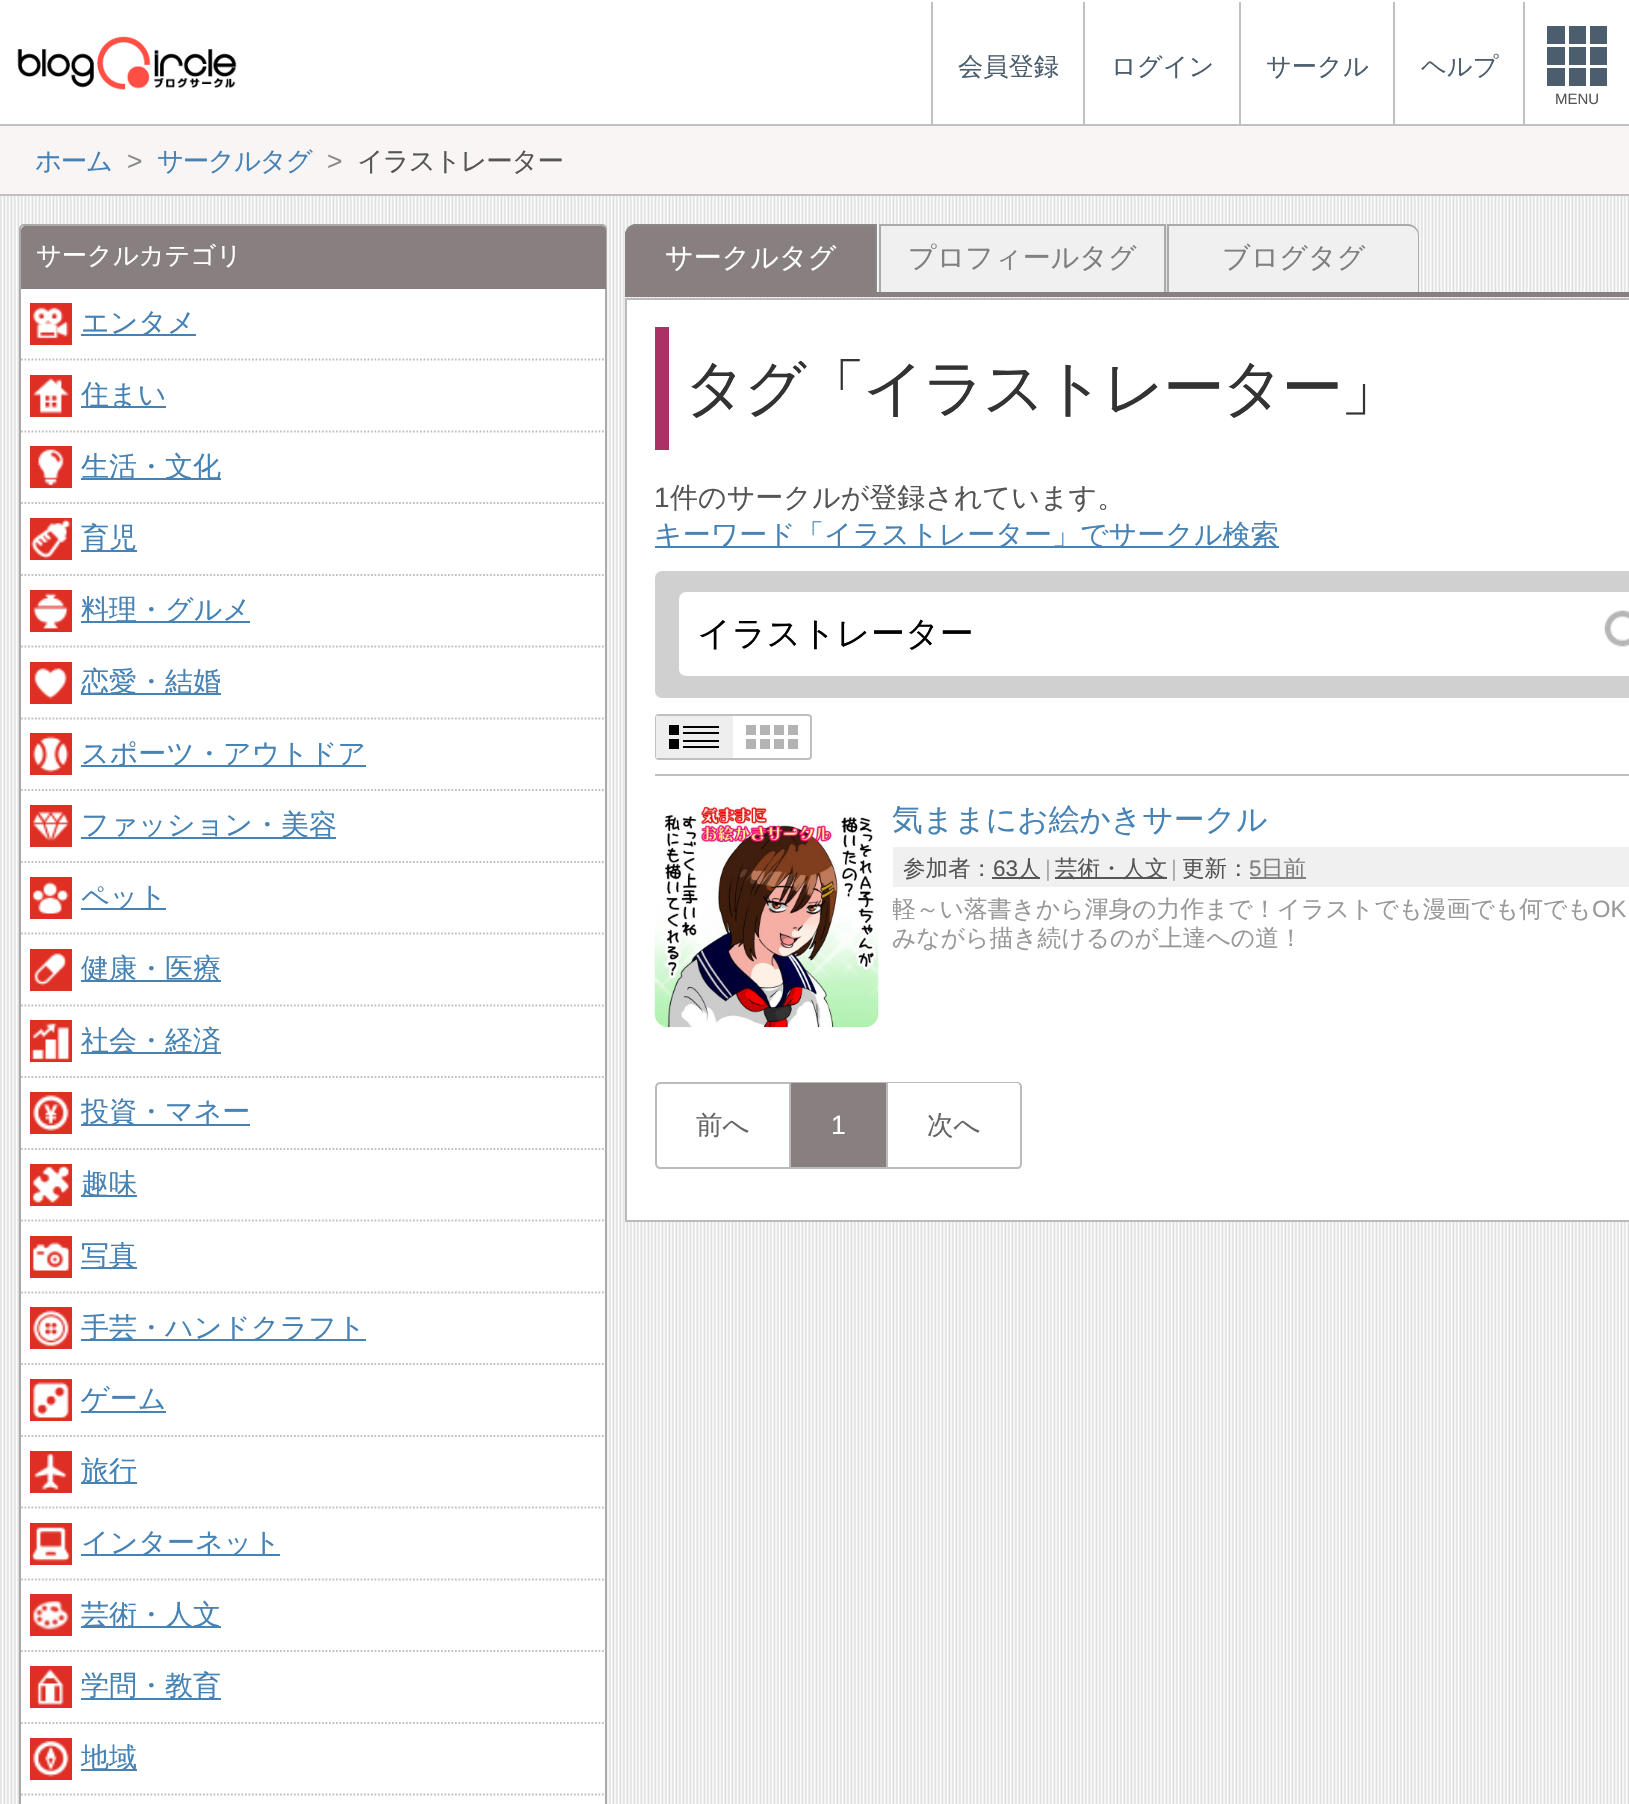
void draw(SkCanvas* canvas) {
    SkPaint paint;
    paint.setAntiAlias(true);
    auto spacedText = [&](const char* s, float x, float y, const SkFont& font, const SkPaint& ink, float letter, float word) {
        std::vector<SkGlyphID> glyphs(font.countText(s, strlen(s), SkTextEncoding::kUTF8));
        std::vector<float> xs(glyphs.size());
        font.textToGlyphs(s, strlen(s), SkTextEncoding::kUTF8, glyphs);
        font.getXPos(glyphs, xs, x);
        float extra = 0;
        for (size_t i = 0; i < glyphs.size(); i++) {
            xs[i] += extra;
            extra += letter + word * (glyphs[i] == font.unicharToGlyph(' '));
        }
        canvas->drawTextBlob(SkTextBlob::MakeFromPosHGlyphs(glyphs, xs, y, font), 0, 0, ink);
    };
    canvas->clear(0xFFFFFFFF);
    canvas->drawImageRect(SkImages::DeferredFromEncodedData(SkData::MakeFromFileName("img1.png")), SkRect::MakeXYWH(0, 196, 1629, 1608), SkSamplingOptions());
    paint.setColor(0xFFC0C0C0);
    canvas->drawRect(SkRect::MakeXYWH(0, 124, 1629, 2), paint);
    canvas->drawImageRect(SkImages::DeferredFromEncodedData(SkData::MakeFromFileName("img2.png")), SkRect::MakeXYWH(17, 36, 220, 54), SkSamplingOptions());
    canvas->drawRect(SkRect::MakeXYWH(931, 2, 2, 122), paint);
    SkFont font1(fontMgr->matchFamilyStyle("WenQuanYi Zen Hei", SkFontStyle(500, SkFontStyle::kNormal_Width, SkFontStyle::kUpright_Slant)), 25.25f);
    font1.setSubpixel(true);
    paint.setColor(0xFF4C5E6D);
    canvas->drawString("会員登録", 958, 75, font1, paint);
    paint.setColor(0xFFC0C0C0);
    canvas->drawRect(SkRect::MakeXYWH(1083, 2, 2, 122), paint);
    paint.setColor(0xFF4C5E6D);
    canvas->drawString("ログイン", 1111, 75, font1, paint);
    paint.setColor(0xFFC0C0C0);
    canvas->drawRect(SkRect::MakeXYWH(1239, 2, 2, 122), paint);
    paint.setColor(0xFF4C5E6D);
    canvas->drawString("サークル", 1266, 75, font1, paint);
    paint.setColor(0xFFC0C0C0);
    canvas->drawRect(SkRect::MakeXYWH(1393, 2, 2, 122), paint);
    paint.setColor(0xFF4C5E6D);
    canvas->drawString("ヘルプ", 1421, 75, font1, paint);
    paint.setColor(0xFFC0C0C0);
    canvas->drawRect(SkRect::MakeXYWH(1523, 2, 2, 122), paint);
    paint.setColor(0xFF4C5E6D);
    canvas->drawRect(SkRect::MakeXYWH(1547, 26, 60, 18), paint);
    paint.setColor(0xFFFFFFFF);
    canvas->drawRect(SkRect::MakeXYWH(1586, 26, 4, 18), paint);
    canvas->drawRect(SkRect::MakeXYWH(1565, 26, 4, 18), paint);
    paint.setColor(0xFF4C5E6D);
    canvas->drawRect(SkRect::MakeXYWH(1547, 47, 60, 18), paint);
    paint.setColor(0xFFFFFFFF);
    canvas->drawRect(SkRect::MakeXYWH(1586, 47, 4, 18), paint);
    canvas->drawRect(SkRect::MakeXYWH(1565, 47, 4, 18), paint);
    paint.setColor(0xFF4C5E6D);
    canvas->drawRect(SkRect::MakeXYWH(1547, 68, 60, 18), paint);
    paint.setColor(0xFFFFFFFF);
    canvas->drawRect(SkRect::MakeXYWH(1586, 68, 4, 18), paint);
    canvas->drawRect(SkRect::MakeXYWH(1565, 68, 4, 18), paint);
    SkFont font2(fontMgr->matchFamilyStyle("Liberation Sans", SkFontStyle::Normal()), 15);
    font2.setSubpixel(true);
    paint.setColor(0xFF555555);
    canvas->drawString("MENU", 1555, 104, font2, paint);
    paint.setColor(0xFFFAF5F5);
    canvas->drawRect(SkRect::MakeXYWH(0, 126, 1629, 68), paint);
    paint.setColor(0xFFC0C0C0);
    canvas->drawRect(SkRect::MakeXYWH(0, 194, 1629, 2), paint);
    SkFont font3(fontMgr->matchFamilyStyle("WenQuanYi Zen Hei", SkFontStyle(500, SkFontStyle::kNormal_Width, SkFontStyle::kUpright_Slant)), 26.5f);
    font3.setSubpixel(true);
    paint.setColor(0xFF4682B4);
    spacedText("ホーム", 35, 170, font3, paint, -1.25f, 0);
    SkFont font4(fontMgr->matchFamilyStyle("Liberation Sans", SkFontStyle::Normal()), 26.5f);
    font4.setSubpixel(true);
    paint.setColor(0xFF888888);
    spacedText(">", 127, 170, font4, paint, -1.25f, 0);
    paint.setColor(0xFF4682B4);
    spacedText("サークルタグ", 157, 170, font3, paint, -1.25f, 0);
    paint.setColor(0xFF888888);
    spacedText(">", 327, 170, font4, paint, -1.25f, 0);
    paint.setColor(0xFF555555);
    spacedText("イラストレーター", 357, 170, font3, paint, -1.25f, 0);
    paint.setColor(0xFFFFFFFF);
    canvas->drawRoundRect(SkRect::MakeXYWH(20, 225, 586, 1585), 4, 4, paint);
    paint.setStyle(SkPaint::kStroke_Style);
    paint.setStrokeWidth(2);
    paint.setColor(0xFFAAAAAA);
    canvas->drawRoundRect(SkRect::MakeXYWH(20, 225, 586, 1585), 4, 4, paint);
    paint.setStyle(SkPaint::kFill_Style);
    paint.setColor(0xFF888080);
    canvas->drawPath(SkPathBuilder().moveTo(25, 226).lineTo(602, 226).cubicTo(604, 226, 606, 228, 606, 230).lineTo(606, 289).lineTo(21, 289).lineTo(21, 230).cubicTo(21, 228, 23, 226, 25, 226).close().detach(), paint);
    paint.setColor(0xFFFFFFFF);
    canvas->drawString("サークルカテゴリ", 36, 264, font1, paint);
    paint.setColor(0xFFDF2E24);
    canvas->drawRect(SkRect::MakeXYWH(30, 303, 42, 42), paint);
    canvas->drawImageRect(SkImages::DeferredFromEncodedData(SkData::MakeFromFileName("img3.png")), SkRect::MakeXYWH(32, 307, 37, 32), SkSamplingOptions());
    paint.setColor(0xFF4682B4);
    canvas->drawRect(SkRect::MakeXYWH(81, 334, 115, 2), paint);
    SkFont font5(fontMgr->matchFamilyStyle("WenQuanYi Zen Hei", SkFontStyle(500, SkFontStyle::kNormal_Width, SkFontStyle::kUpright_Slant)), 28);
    font5.setSubpixel(true);
    canvas->drawString("エンタメ", 81, 332, font5, paint);
    paint.setStyle(SkPaint::kStroke_Style);
    paint.setStrokeWidth(1.8f);
    paint.setColor(0xFFC0C0C0);
    paint.setPathEffect(SkDashPathEffect::Make({{1.75f, 1.75f}}, 0));
    canvas->drawPath(SkPathBuilder().moveTo(21, 359.5f).lineTo(605.5f, 359.5f).detach(), paint);
    paint.setPathEffect(nullptr);
    paint.setStyle(SkPaint::kFill_Style);
    paint.setColor(0xFFDF2E24);
    canvas->drawRect(SkRect::MakeXYWH(30, 375, 42, 42), paint);
    canvas->drawImageRect(SkImages::DeferredFromEncodedData(SkData::MakeFromFileName("img4.png")), SkRect::MakeXYWH(33, 377, 36, 37), SkSamplingOptions());
    paint.setColor(0xFF4682B4);
    canvas->drawRect(SkRect::MakeXYWH(81, 406, 85, 2), paint);
    canvas->drawString("住まい", 81, 404, font5, paint);
    paint.setStyle(SkPaint::kStroke_Style);
    paint.setColor(0xFFC0C0C0);
    paint.setPathEffect(SkDashPathEffect::Make({{1.75f, 1.75f}}, 0));
    canvas->drawPath(SkPathBuilder().moveTo(21, 431.5f).lineTo(605.5f, 431.5f).detach(), paint);
    paint.setPathEffect(nullptr);
    paint.setStyle(SkPaint::kFill_Style);
    paint.setColor(0xFFDF2E24);
    canvas->drawRect(SkRect::MakeXYWH(30, 446, 42, 42), paint);
    canvas->drawImageRect(SkImages::DeferredFromEncodedData(SkData::MakeFromFileName("img5.png")), SkRect::MakeXYWH(38, 449, 26, 37), SkSamplingOptions());
    paint.setColor(0xFF4682B4);
    canvas->drawRect(SkRect::MakeXYWH(81, 478, 140, 2), paint);
    canvas->drawString("生活・文化", 81, 476, font5, paint);
    paint.setStyle(SkPaint::kStroke_Style);
    paint.setColor(0xFFC0C0C0);
    paint.setPathEffect(SkDashPathEffect::Make({{1.75f, 1.75f}}, 0));
    canvas->drawPath(SkPathBuilder().moveTo(21, 503).lineTo(605.5f, 503).detach(), paint);
    paint.setPathEffect(nullptr);
    paint.setStyle(SkPaint::kFill_Style);
    paint.setColor(0xFFDF2E24);
    canvas->drawRect(SkRect::MakeXYWH(30, 518, 42, 42), paint);
    canvas->drawImageRect(SkImages::DeferredFromEncodedData(SkData::MakeFromFileName("img6.png")), SkRect::MakeXYWH(31, 519, 40, 40), SkSamplingOptions());
    paint.setColor(0xFF4682B4);
    canvas->drawRect(SkRect::MakeXYWH(81, 550, 56, 2), paint);
    canvas->drawString("育児", 81, 547, font5, paint);
    paint.setStyle(SkPaint::kStroke_Style);
    paint.setColor(0xFFC0C0C0);
    paint.setPathEffect(SkDashPathEffect::Make({{1.75f, 1.75f}}, 0));
    canvas->drawPath(SkPathBuilder().moveTo(21, 575).lineTo(605.5f, 575).detach(), paint);
    paint.setPathEffect(nullptr);
    paint.setStyle(SkPaint::kFill_Style);
    paint.setColor(0xFFDF2E24);
    canvas->drawRect(SkRect::MakeXYWH(30, 590, 42, 42), paint);
    canvas->drawImageRect(SkImages::DeferredFromEncodedData(SkData::MakeFromFileName("img7.png")), SkRect::MakeXYWH(33, 593, 36, 36), SkSamplingOptions());
    paint.setColor(0xFF4682B4);
    canvas->drawRect(SkRect::MakeXYWH(81, 621, 169, 2), paint);
    canvas->drawString("料理・グルメ", 81, 619, font5, paint);
    paint.setStyle(SkPaint::kStroke_Style);
    paint.setColor(0xFFC0C0C0);
    paint.setPathEffect(SkDashPathEffect::Make({{1.75f, 1.75f}}, 0));
    canvas->drawPath(SkPathBuilder().moveTo(21, 646.5f).lineTo(605.5f, 646.5f).detach(), paint);
    paint.setPathEffect(nullptr);
    paint.setStyle(SkPaint::kFill_Style);
    paint.setColor(0xFFDF2E24);
    canvas->drawRect(SkRect::MakeXYWH(30, 662, 42, 42), paint);
    canvas->drawImageRect(SkImages::DeferredFromEncodedData(SkData::MakeFromFileName("img8.png")), SkRect::MakeXYWH(34, 668, 33, 31), SkSamplingOptions());
    paint.setColor(0xFF4682B4);
    canvas->drawRect(SkRect::MakeXYWH(81, 693, 140, 2), paint);
    canvas->drawString("恋愛・結婚", 81, 691, font5, paint);
    paint.setStyle(SkPaint::kStroke_Style);
    paint.setColor(0xFFC0C0C0);
    paint.setPathEffect(SkDashPathEffect::Make({{1.75f, 1.75f}}, 0));
    canvas->drawPath(SkPathBuilder().moveTo(21, 718.5f).lineTo(605.5f, 718.5f).detach(), paint);
    paint.setPathEffect(nullptr);
    paint.setStyle(SkPaint::kFill_Style);
    paint.setColor(0xFFDF2E24);
    canvas->drawRect(SkRect::MakeXYWH(30, 733, 42, 42), paint);
    canvas->drawImageRect(SkImages::DeferredFromEncodedData(SkData::MakeFromFileName("img9.png")), SkRect::MakeXYWH(32, 736, 37, 37), SkSamplingOptions());
    paint.setColor(0xFF4682B4);
    canvas->drawRect(SkRect::MakeXYWH(81, 765, 285, 2), paint);
    canvas->drawString("スポーツ・アウトドア", 81, 763, font5, paint);
    paint.setStyle(SkPaint::kStroke_Style);
    paint.setColor(0xFFC0C0C0);
    paint.setPathEffect(SkDashPathEffect::Make({{1.75f, 1.75f}}, 0));
    canvas->drawPath(SkPathBuilder().moveTo(21, 790).lineTo(605.5f, 790).detach(), paint);
    paint.setPathEffect(nullptr);
    paint.setStyle(SkPaint::kFill_Style);
    paint.setColor(0xFFDF2E24);
    canvas->drawRect(SkRect::MakeXYWH(30, 805, 42, 42), paint);
    canvas->drawImageRect(SkImages::DeferredFromEncodedData(SkData::MakeFromFileName("img10.png")), SkRect::MakeXYWH(32, 811, 37, 30), SkSamplingOptions());
    paint.setColor(0xFF4682B4);
    canvas->drawRect(SkRect::MakeXYWH(81, 837, 255, 2), paint);
    canvas->drawString("ファッション・美容", 81, 834, font5, paint);
    paint.setStyle(SkPaint::kStroke_Style);
    paint.setColor(0xFFC0C0C0);
    paint.setPathEffect(SkDashPathEffect::Make({{1.75f, 1.75f}}, 0));
    canvas->drawPath(SkPathBuilder().moveTo(21, 862).lineTo(605.5f, 862).detach(), paint);
    paint.setPathEffect(nullptr);
    paint.setStyle(SkPaint::kFill_Style);
    paint.setColor(0xFFDF2E24);
    canvas->drawRect(SkRect::MakeXYWH(30, 877, 42, 42), paint);
    canvas->drawImageRect(SkImages::DeferredFromEncodedData(SkData::MakeFromFileName("img11.png")), SkRect::MakeXYWH(32, 881, 37, 33), SkSamplingOptions());
    paint.setColor(0xFF4682B4);
    canvas->drawRect(SkRect::MakeXYWH(81, 908, 85, 2), paint);
    canvas->drawString("ペット", 81, 906, font5, paint);
    paint.setStyle(SkPaint::kStroke_Style);
    paint.setColor(0xFFC0C0C0);
    paint.setPathEffect(SkDashPathEffect::Make({{1.75f, 1.75f}}, 0));
    canvas->drawPath(SkPathBuilder().moveTo(21, 933.5f).lineTo(605.5f, 933.5f).detach(), paint);
    paint.setPathEffect(nullptr);
    paint.setStyle(SkPaint::kFill_Style);
    paint.setColor(0xFFDF2E24);
    canvas->drawRect(SkRect::MakeXYWH(30, 949, 42, 42), paint);
    canvas->drawImageRect(SkImages::DeferredFromEncodedData(SkData::MakeFromFileName("img12.png")), SkRect::MakeXYWH(33, 953, 34, 33), SkSamplingOptions());
    paint.setColor(0xFF4682B4);
    canvas->drawRect(SkRect::MakeXYWH(81, 980, 140, 2), paint);
    canvas->drawString("健康・医療", 81, 978, font5, paint);
    paint.setStyle(SkPaint::kStroke_Style);
    paint.setColor(0xFFC0C0C0);
    paint.setPathEffect(SkDashPathEffect::Make({{1.75f, 1.75f}}, 0));
    canvas->drawPath(SkPathBuilder().moveTo(21, 1005.5f).lineTo(605.5f, 1005.5f).detach(), paint);
    paint.setPathEffect(nullptr);
    paint.setStyle(SkPaint::kFill_Style);
    paint.setColor(0xFFDF2E24);
    canvas->drawRect(SkRect::MakeXYWH(30, 1020, 42, 42), paint);
    canvas->drawImageRect(SkImages::DeferredFromEncodedData(SkData::MakeFromFileName("img13.png")), SkRect::MakeXYWH(31, 1023, 39, 37), SkSamplingOptions());
    paint.setColor(0xFF4682B4);
    canvas->drawRect(SkRect::MakeXYWH(81, 1052, 140, 2), paint);
    canvas->drawString("社会・経済", 81, 1050, font5, paint);
    paint.setStyle(SkPaint::kStroke_Style);
    paint.setColor(0xFFC0C0C0);
    paint.setPathEffect(SkDashPathEffect::Make({{1.75f, 1.75f}}, 0));
    canvas->drawPath(SkPathBuilder().moveTo(21, 1077).lineTo(605.5f, 1077).detach(), paint);
    paint.setPathEffect(nullptr);
    paint.setStyle(SkPaint::kFill_Style);
    paint.setColor(0xFFDF2E24);
    canvas->drawRect(SkRect::MakeXYWH(30, 1092, 42, 42), paint);
    canvas->drawImageRect(SkImages::DeferredFromEncodedData(SkData::MakeFromFileName("img14.png")), SkRect::MakeXYWH(32, 1095, 37, 36), SkSamplingOptions());
    paint.setColor(0xFF4682B4);
    canvas->drawRect(SkRect::MakeXYWH(81, 1124, 169, 2), paint);
    canvas->drawString("投資・マネー", 81, 1121, font5, paint);
    paint.setStyle(SkPaint::kStroke_Style);
    paint.setColor(0xFFC0C0C0);
    paint.setPathEffect(SkDashPathEffect::Make({{1.75f, 1.75f}}, 0));
    canvas->drawPath(SkPathBuilder().moveTo(21, 1149).lineTo(605.5f, 1149).detach(), paint);
    paint.setPathEffect(nullptr);
    paint.setStyle(SkPaint::kFill_Style);
    paint.setColor(0xFFDF2E24);
    canvas->drawRect(SkRect::MakeXYWH(30, 1164, 42, 42), paint);
    canvas->drawImageRect(SkImages::DeferredFromEncodedData(SkData::MakeFromFileName("img15.png")), SkRect::MakeXYWH(32, 1165, 38, 38), SkSamplingOptions());
    paint.setColor(0xFF4682B4);
    canvas->drawRect(SkRect::MakeXYWH(81, 1195, 56, 2), paint);
    canvas->drawString("趣味", 81, 1193, font5, paint);
    paint.setStyle(SkPaint::kStroke_Style);
    paint.setColor(0xFFC0C0C0);
    paint.setPathEffect(SkDashPathEffect::Make({{1.75f, 1.75f}}, 0));
    canvas->drawPath(SkPathBuilder().moveTo(21, 1220.5f).lineTo(605.5f, 1220.5f).detach(), paint);
    paint.setPathEffect(nullptr);
    paint.setStyle(SkPaint::kFill_Style);
    paint.setColor(0xFFDF2E24);
    canvas->drawRect(SkRect::MakeXYWH(30, 1236, 42, 42), paint);
    canvas->drawImageRect(SkImages::DeferredFromEncodedData(SkData::MakeFromFileName("img16.png")), SkRect::MakeXYWH(32, 1242, 39, 29), SkSamplingOptions());
    paint.setColor(0xFF4682B4);
    canvas->drawRect(SkRect::MakeXYWH(81, 1267, 56, 2), paint);
    canvas->drawString("写真", 81, 1265, font5, paint);
    paint.setStyle(SkPaint::kStroke_Style);
    paint.setColor(0xFFC0C0C0);
    paint.setPathEffect(SkDashPathEffect::Make({{1.75f, 1.75f}}, 0));
    canvas->drawPath(SkPathBuilder().moveTo(21, 1292.5f).lineTo(605.5f, 1292.5f).detach(), paint);
    paint.setPathEffect(nullptr);
    paint.setStyle(SkPaint::kFill_Style);
    paint.setColor(0xFFDF2E24);
    canvas->drawRect(SkRect::MakeXYWH(30, 1307, 42, 42), paint);
    canvas->drawImageRect(SkImages::DeferredFromEncodedData(SkData::MakeFromFileName("img17.png")), SkRect::MakeXYWH(32, 1310, 37, 37), SkSamplingOptions());
    paint.setColor(0xFF4682B4);
    canvas->drawRect(SkRect::MakeXYWH(81, 1339, 285, 2), paint);
    canvas->drawString("手芸・ハンドクラフト", 81, 1337, font5, paint);
    paint.setStyle(SkPaint::kStroke_Style);
    paint.setColor(0xFFC0C0C0);
    paint.setPathEffect(SkDashPathEffect::Make({{1.75f, 1.75f}}, 0));
    canvas->drawPath(SkPathBuilder().moveTo(21, 1364).lineTo(605.5f, 1364).detach(), paint);
    paint.setPathEffect(nullptr);
    paint.setStyle(SkPaint::kFill_Style);
    paint.setColor(0xFFDF2E24);
    canvas->drawRect(SkRect::MakeXYWH(30, 1379, 42, 42), paint);
    canvas->drawImageRect(SkImages::DeferredFromEncodedData(SkData::MakeFromFileName("img18.png")), SkRect::MakeXYWH(32, 1382, 37, 36), SkSamplingOptions());
    paint.setColor(0xFF4682B4);
    canvas->drawRect(SkRect::MakeXYWH(81, 1411, 85, 2), paint);
    canvas->drawString("ゲーム", 81, 1408, font5, paint);
    paint.setStyle(SkPaint::kStroke_Style);
    paint.setColor(0xFFC0C0C0);
    paint.setPathEffect(SkDashPathEffect::Make({{1.75f, 1.75f}}, 0));
    canvas->drawPath(SkPathBuilder().moveTo(21, 1436).lineTo(605.5f, 1436).detach(), paint);
    paint.setPathEffect(nullptr);
    paint.setStyle(SkPaint::kFill_Style);
    paint.setColor(0xFFDF2E24);
    canvas->drawRect(SkRect::MakeXYWH(30, 1451, 42, 42), paint);
    canvas->drawImageRect(SkImages::DeferredFromEncodedData(SkData::MakeFromFileName("img19.png")), SkRect::MakeXYWH(34, 1453, 33, 37), SkSamplingOptions());
    paint.setColor(0xFF4682B4);
    canvas->drawRect(SkRect::MakeXYWH(81, 1482, 56, 2), paint);
    canvas->drawString("旅行", 81, 1480, font5, paint);
    paint.setStyle(SkPaint::kStroke_Style);
    paint.setColor(0xFFC0C0C0);
    paint.setPathEffect(SkDashPathEffect::Make({{1.75f, 1.75f}}, 0));
    canvas->drawPath(SkPathBuilder().moveTo(21, 1507.5f).lineTo(605.5f, 1507.5f).detach(), paint);
    paint.setPathEffect(nullptr);
    paint.setStyle(SkPaint::kFill_Style);
    paint.setColor(0xFFDF2E24);
    canvas->drawRect(SkRect::MakeXYWH(30, 1523, 42, 42), paint);
    canvas->drawImageRect(SkImages::DeferredFromEncodedData(SkData::MakeFromFileName("img20.png")), SkRect::MakeXYWH(31, 1527, 40, 35), SkSamplingOptions());
    paint.setColor(0xFF4682B4);
    canvas->drawRect(SkRect::MakeXYWH(81, 1554, 199, 2), paint);
    canvas->drawString("インターネット", 81, 1552, font5, paint);
    paint.setStyle(SkPaint::kStroke_Style);
    paint.setColor(0xFFC0C0C0);
    paint.setPathEffect(SkDashPathEffect::Make({{1.75f, 1.75f}}, 0));
    canvas->drawPath(SkPathBuilder().moveTo(21, 1579.5f).lineTo(605.5f, 1579.5f).detach(), paint);
    paint.setPathEffect(nullptr);
    paint.setStyle(SkPaint::kFill_Style);
    paint.setColor(0xFFDF2E24);
    canvas->drawRect(SkRect::MakeXYWH(30, 1594, 42, 42), paint);
    canvas->drawImageRect(SkImages::DeferredFromEncodedData(SkData::MakeFromFileName("img21.png")), SkRect::MakeXYWH(32, 1600, 37, 30), SkSamplingOptions());
    paint.setColor(0xFF4682B4);
    canvas->drawRect(SkRect::MakeXYWH(81, 1626, 140, 2), paint);
    canvas->drawString("芸術・人文", 81, 1624, font5, paint);
    paint.setStyle(SkPaint::kStroke_Style);
    paint.setColor(0xFFC0C0C0);
    paint.setPathEffect(SkDashPathEffect::Make({{1.75f, 1.75f}}, 0));
    canvas->drawPath(SkPathBuilder().moveTo(21, 1651).lineTo(605.5f, 1651).detach(), paint);
    paint.setPathEffect(nullptr);
    paint.setStyle(SkPaint::kFill_Style);
    paint.setColor(0xFFDF2E24);
    canvas->drawRect(SkRect::MakeXYWH(30, 1666, 42, 42), paint);
    canvas->drawImageRect(SkImages::DeferredFromEncodedData(SkData::MakeFromFileName("img22.png")), SkRect::MakeXYWH(36, 1669, 28, 36), SkSamplingOptions());
    paint.setColor(0xFF4682B4);
    canvas->drawRect(SkRect::MakeXYWH(81, 1698, 140, 2), paint);
    canvas->drawString("学問・教育", 81, 1695, font5, paint);
    paint.setStyle(SkPaint::kStroke_Style);
    paint.setColor(0xFFC0C0C0);
    paint.setPathEffect(SkDashPathEffect::Make({{1.75f, 1.75f}}, 0));
    canvas->drawPath(SkPathBuilder().moveTo(21, 1723).lineTo(605.5f, 1723).detach(), paint);
    paint.setPathEffect(nullptr);
    paint.setStyle(SkPaint::kFill_Style);
    paint.setColor(0xFFDF2E24);
    canvas->drawRect(SkRect::MakeXYWH(30, 1738, 42, 42), paint);
    canvas->drawImageRect(SkImages::DeferredFromEncodedData(SkData::MakeFromFileName("img23.png")), SkRect::MakeXYWH(32, 1740, 37, 37), SkSamplingOptions());
    paint.setColor(0xFF4682B4);
    canvas->drawRect(SkRect::MakeXYWH(81, 1769, 56, 2), paint);
    canvas->drawString("地域", 81, 1767, font5, paint);
    paint.setStyle(SkPaint::kStroke_Style);
    paint.setColor(0xFFC0C0C0);
    paint.setPathEffect(SkDashPathEffect::Make({{1.75f, 1.75f}}, 0));
    canvas->drawPath(SkPathBuilder().moveTo(21, 1794.5f).lineTo(605.5f, 1794.5f).detach(), paint);
    paint.setPathEffect(nullptr);
    paint.setStyle(SkPaint::kFill_Style);
    paint.setColor(0xFF888080);
    canvas->drawRect(SkRect::MakeXYWH(625, 292, 1004, 5), paint);
    canvas->drawPath(SkPathBuilder().moveTo(636, 224).lineTo(877, 224).lineTo(877, 292).lineTo(625, 292).lineTo(625, 235).cubicTo(625, 229, 630, 224, 636, 224).close().detach(), paint);
    paint.setColor(0xFF888888);
    canvas->drawPath(SkPathBuilder(SkPathFillType::kEvenOdd).moveTo(636, 224).lineTo(877, 224).lineTo(877, 292).lineTo(625, 292).lineTo(625, 235).cubicTo(625, 229, 630, 224, 636, 224).close().moveTo(636, 226).lineTo(875, 226).lineTo(875, 292).lineTo(626, 292).lineTo(626, 235).cubicTo(626, 230, 631, 226, 636, 226).close().detach(), paint);
    paint.setColor(0xFFFFFFFF);
    canvas->drawString("サークルタグ", 665, 267, font5, paint);
    paint.setColor(0xFFF0F0F0);
    canvas->drawRect(SkRect::MakeXYWH(881, 226, 283, 66), paint);
    paint.setColor(0xFFAAAAAA);
    canvas->drawRect(SkRect::MakeXYWH(879, 224, 287, 2), paint);
    canvas->drawRect(SkRect::MakeXYWH(1164, 224, 2, 68), paint);
    canvas->drawRect(SkRect::MakeXYWH(879, 224, 2, 68), paint);
    paint.setColor(0xFF808080);
    canvas->drawString("プロフィールタグ", 908, 267, font5, paint);
    paint.setColor(0xFFF0F0F0);
    canvas->drawPath(SkPathBuilder().moveTo(1167, 224).lineTo(1408, 224).cubicTo(1414, 224, 1419, 229, 1419, 235).lineTo(1419, 292).lineTo(1167, 292).close().detach(), paint);
    paint.setColor(0xFFAAAAAA);
    canvas->drawPath(SkPathBuilder(SkPathFillType::kEvenOdd).moveTo(1167, 224).lineTo(1408, 224).cubicTo(1414, 224, 1419, 229, 1419, 235).lineTo(1419, 292).lineTo(1167, 292).close().moveTo(1169, 226).lineTo(1408, 226).cubicTo(1413, 226, 1418, 230, 1418, 235).lineTo(1418, 292).lineTo(1169, 292).close().detach(), paint);
    paint.setColor(0xFF808080);
    canvas->drawString("ブログタグ", 1222, 267, font5, paint);
    paint.setColor(0xFFFFFFFF);
    canvas->drawRect(SkRect::MakeXYWH(626, 299, 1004, 922), paint);
    paint.setStyle(SkPaint::kStroke_Style);
    paint.setStrokeWidth(2);
    paint.setColor(0xFFBBBBBB);
    canvas->drawRect(SkRect::MakeXYWH(626, 299, 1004, 922), paint);
    paint.setStyle(SkPaint::kFill_Style);
    paint.setColor(0xFFAB3063);
    canvas->drawRect(SkRect::MakeXYWH(655, 327, 14, 123), paint);
    SkFont font6(fontMgr->matchFamilyStyle("WenQuanYi Zen Hei", SkFontStyle(500, SkFontStyle::kNormal_Width, SkFontStyle::kUpright_Slant)), 61.6f);
    font6.setSubpixel(true);
    paint.setColor(0xFF333333);
    spacedText("タグ「イラストレーター」", 684, 409, font6, paint, -3, 0);
    SkFont font7(fontMgr->matchFamilyStyle("Liberation Sans", SkFontStyle::Normal()), 28);
    font7.setSubpixel(true);
    paint.setColor(0xFF555555);
    canvas->drawString("1", 654, 507, font7, paint);
    canvas->drawString("件のサークルが登録されています。", 670, 507, font5, paint);
    paint.setColor(0xFF4682B4);
    canvas->drawRect(SkRect::MakeXYWH(655, 546, 624, 2), paint);
    canvas->drawString("キーワード「イラストレーター」でサークル検索", 654, 544, font5, paint);
    paint.setColor(0xFFD0D0D0);
    canvas->drawRoundRect(SkRect::MakeXYWH(655, 571, 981, 127), 7, 7, paint);
    paint.setColor(0xFFFFFFFF);
    canvas->drawRoundRect(SkRect::MakeXYWH(680, 593, 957, 82), 6, 6, paint);
    paint.setStyle(SkPaint::kStroke_Style);
    canvas->drawRoundRect(SkRect::MakeXYWH(680, 593, 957, 82), 6, 6, paint);
    SkFont font8(fontMgr->matchFamilyStyle("WenQuanYi Zen Hei", SkFontStyle(500, SkFontStyle::kNormal_Width, SkFontStyle::kUpright_Slant)), 34);
    font8.setSubpixel(true);
    paint.setStyle(SkPaint::kFill_Style);
    paint.setColor(0xFF000000);
    canvas->drawString("イラストレーター", 697, 645, font8, paint);
    canvas->drawImageRect(SkImages::DeferredFromEncodedData(SkData::MakeFromFileName("img24.png")), SkRect::MakeXYWH(1604, 610, 25, 37), SkSamplingOptions());
    paint.setStyle(SkPaint::kStroke_Style);
    paint.setColor(0xFFC0C0C0);
    canvas->drawRoundRect(SkRect::MakeXYWH(656, 715, 155, 44), 3, 3, paint);
    paint.setStyle(SkPaint::kFill_Style);
    paint.setColor(0xFFEEEEEE);
    canvas->drawRect(SkRect::MakeXYWH(656, 716, 77, 42), paint);
    paint.setColor(0xFF000000);
    canvas->drawRect(SkRect::MakeXYWH(669, 725, 10, 10), paint);
    canvas->drawRect(SkRect::MakeXYWH(683, 726, 36, 2), paint);
    canvas->drawRect(SkRect::MakeXYWH(683, 732, 36, 2), paint);
    canvas->drawRect(SkRect::MakeXYWH(669, 739, 10, 10), paint);
    canvas->drawRect(SkRect::MakeXYWH(683, 740, 36, 2), paint);
    canvas->drawRect(SkRect::MakeXYWH(683, 746, 36, 2), paint);
    paint.setColor(0xFFB3B3B3);
    canvas->drawRect(SkRect::MakeXYWH(746, 725, 10, 10), paint);
    canvas->drawRect(SkRect::MakeXYWH(760, 725, 10, 10), paint);
    canvas->drawRect(SkRect::MakeXYWH(774, 725, 10, 10), paint);
    canvas->drawRect(SkRect::MakeXYWH(788, 725, 10, 10), paint);
    canvas->drawRect(SkRect::MakeXYWH(746, 739, 10, 10), paint);
    canvas->drawRect(SkRect::MakeXYWH(760, 739, 10, 10), paint);
    canvas->drawRect(SkRect::MakeXYWH(774, 739, 10, 10), paint);
    canvas->drawRect(SkRect::MakeXYWH(788, 739, 10, 10), paint);
    paint.setColor(0xFFC0C0C0);
    canvas->drawRect(SkRect::MakeXYWH(655, 774, 974, 2), paint);
    canvas->drawImageRect(SkImages::DeferredFromEncodedData(SkData::MakeFromFileName("img25.png")), SkRect::MakeXYWH(654, 803, 225, 225), SkSamplingOptions());
    SkFont font9(fontMgr->matchFamilyStyle("WenQuanYi Zen Hei", SkFontStyle(500, SkFontStyle::kNormal_Width, SkFontStyle::kUpright_Slant)), 30.75f);
    font9.setSubpixel(true);
    paint.setColor(0xFF4682B4);
    canvas->drawString("気ままにお絵かきサークル", 892, 830, font9, paint);
    paint.setColor(0xFFF0F0F0);
    canvas->drawRect(SkRect::MakeXYWH(893, 847, 736, 40), paint);
    SkFont font10(fontMgr->matchFamilyStyle("WenQuanYi Zen Hei", SkFontStyle(500, SkFontStyle::kNormal_Width, SkFontStyle::kUpright_Slant)), 22.5f);
    font10.setSubpixel(true);
    paint.setColor(0xFF555555);
    canvas->drawString("参加者：", 903, 876, font10, paint);
    SkFont font11(fontMgr->matchFamilyStyle("Liberation Sans", SkFontStyle::Normal()), 22.5f);
    font11.setSubpixel(true);
    canvas->drawString("63", 993, 876, font11, paint);
    canvas->drawRect(SkRect::MakeXYWH(992, 877, 48, 2), paint);
    canvas->drawString("人", 1018, 876, font10, paint);
    paint.setColor(0xFFAAAAAA);
    canvas->drawString("|", 1045, 876, font11, paint);
    paint.setColor(0xFF555555);
    canvas->drawRect(SkRect::MakeXYWH(1055, 877, 112, 2), paint);
    canvas->drawString("芸術・人文", 1055, 876, font10, paint);
    paint.setColor(0xFFAAAAAA);
    canvas->drawString("|", 1171, 876, font11, paint);
    paint.setColor(0xFF555555);
    canvas->drawString("更新：", 1182, 876, font10, paint);
    paint.setColor(0xFF808080);
    canvas->drawString("5", 1249, 876, font11, paint);
    canvas->drawRect(SkRect::MakeXYWH(1250, 877, 56, 2), paint);
    canvas->drawString("日前", 1261, 876, font10, paint);
    canvas->save();
    canvas->clipRect(SkRect::MakeXYWH(893, 896, 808, 58));
    SkFont font12(fontMgr->matchFamilyStyle("WenQuanYi Zen Hei", SkFontStyle(500, SkFontStyle::kNormal_Width, SkFontStyle::kUpright_Slant)), 23.8f);
    font12.setSubpixel(true);
    paint.setColor(0xFF999999);
    canvas->drawString("軽～い落書きから渾身の力作まで！イラストでも漫画でも何でも", 892, 917, font12, paint);
    canvas->restore();
    SkFont font13(fontMgr->matchFamilyStyle("Liberation Sans", SkFontStyle::Normal()), 23.8f);
    font13.setSubpixel(true);
    canvas->drawString("OK", 1592, 917, font13, paint);
    canvas->drawString("みながら描き続けるのが上達への道！", 892, 946, font12, paint);
    paint.setStyle(SkPaint::kStroke_Style);
    paint.setColor(0xFFBBBBBB);
    canvas->drawPath(SkPathBuilder().moveTo(660, 1083).lineTo(790, 1083).lineTo(790, 1168).lineTo(660, 1168).cubicTo(658, 1168, 656, 1166, 656, 1164).lineTo(656, 1087).cubicTo(656, 1085, 658, 1083, 660, 1083).close().detach(), paint);
    paint.setStyle(SkPaint::kFill_Style);
    paint.setColor(0xFF666666);
    canvas->drawString("前へ", 696, 1134, font3, paint);
    paint.setColor(0xFFBBBBBB);
    canvas->drawRect(SkRect::MakeXYWH(791, 1082, 96, 1), paint);
    canvas->drawRect(SkRect::MakeXYWH(886, 1082, 2, 87), paint);
    canvas->drawRect(SkRect::MakeXYWH(791, 1167, 96, 2), paint);
    paint.setColor(0xFF888080);
    canvas->drawRect(SkRect::MakeXYWH(791, 1083, 95, 84), paint);
    paint.setColor(0xFFFFFFFF);
    canvas->drawString("1", 831, 1134, font4, paint);
    paint.setColor(0xFFBBBBBB);
    canvas->drawPath(SkPathBuilder(SkPathFillType::kEvenOdd).moveTo(887, 1082).lineTo(1017, 1082).cubicTo(1020, 1082, 1022, 1084, 1022, 1087).lineTo(1022, 1164).cubicTo(1022, 1167, 1020, 1169, 1017, 1169).lineTo(887, 1169).close().moveTo(887, 1083).lineTo(1017, 1083).cubicTo(1019, 1083, 1020, 1085, 1020, 1087).lineTo(1020, 1164).cubicTo(1020, 1166, 1019, 1167, 1017, 1167).lineTo(887, 1167).close().detach(), paint);
    paint.setColor(0xFF666666);
    canvas->drawString("次へ", 927, 1134, font3, paint);
}
